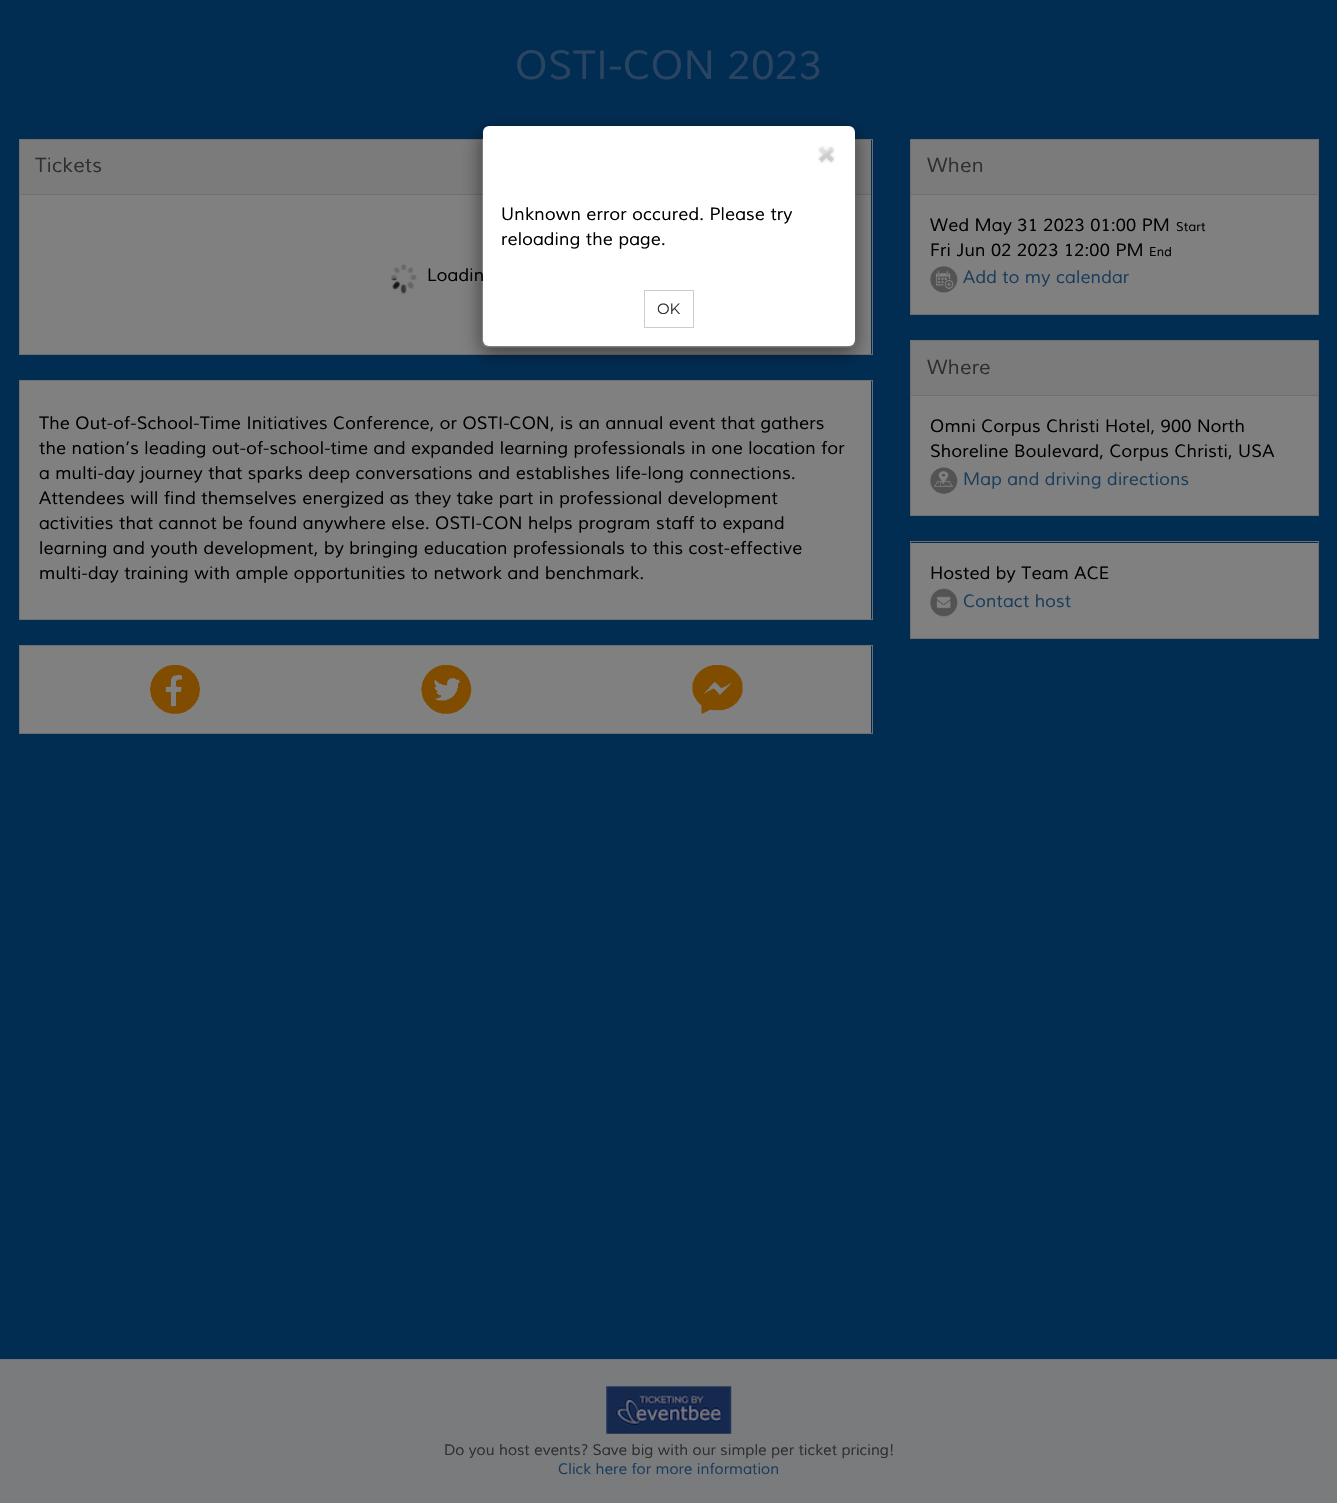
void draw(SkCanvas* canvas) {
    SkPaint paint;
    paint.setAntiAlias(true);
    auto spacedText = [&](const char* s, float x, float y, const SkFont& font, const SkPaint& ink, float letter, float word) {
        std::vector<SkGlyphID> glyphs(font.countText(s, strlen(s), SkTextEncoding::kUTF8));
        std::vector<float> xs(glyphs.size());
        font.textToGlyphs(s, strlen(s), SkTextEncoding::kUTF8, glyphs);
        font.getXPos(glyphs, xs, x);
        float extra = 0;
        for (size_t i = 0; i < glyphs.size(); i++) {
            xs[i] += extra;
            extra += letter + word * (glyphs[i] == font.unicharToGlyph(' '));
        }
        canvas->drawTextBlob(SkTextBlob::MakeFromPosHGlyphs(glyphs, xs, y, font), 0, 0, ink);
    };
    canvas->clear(0xFF022D53);
    SkFont font1(fontMgr->matchFamilyStyle("Muli", SkFontStyle::Italic()), 40);
    font1.setSubpixel(true);
    paint.setColor(0xFF2A4462);
    spacedText("OSTI-CON 2023", 515, 79, font1, paint, 0.5f, 0);
    paint.setStyle(SkPaint::kStroke_Style);
    paint.setStrokeWidth(1);
    paint.setColor(0xFF6F6F6F);
    canvas->drawRect(SkRect::MakeXYWH(19.5f, 139.5f, 853, 215), paint);
    paint.setStyle(SkPaint::kFill_Style);
    paint.setColor(0xFF7B7B7B);
    canvas->drawRect(SkRect::MakeXYWH(20, 140, 851, 54), paint);
    paint.setColor(0xFF6F6F6F);
    canvas->drawRect(SkRect::MakeXYWH(20, 194, 851, 1), paint);
    SkFont font2(fontMgr->matchFamilyStyle("Muli", SkFontStyle::Italic()), 20);
    font2.setSubpixel(true);
    paint.setColor(0xFF2F2F30);
    spacedText("Tickets", 35, 172, font2, paint, 0.25f, 0);
    paint.setColor(0xFF808080);
    canvas->drawRect(SkRect::MakeXYWH(20, 195, 851, 159), paint);
    canvas->drawImageRect(SkImages::DeferredFromEncodedData(SkData::MakeFromFileName("img1.png")), SkRect::MakeXYWH(391, 264, 26, 30), SkSamplingOptions());
    SkFont font3(fontMgr->matchFamilyStyle("Muli", SkFontStyle::Italic()), 17.5f);
    font3.setSubpixel(true);
    paint.setColor(0xFF000000);
    spacedText("Loadin", 427, 281, font3, paint, 0.2f, 0);
    paint.setStyle(SkPaint::kStroke_Style);
    paint.setColor(0xFF6F6F6F);
    canvas->drawRect(SkRect::MakeXYWH(19.5f, 380.5f, 853, 239), paint);
    paint.setStyle(SkPaint::kFill_Style);
    paint.setColor(0xFF808080);
    canvas->drawRect(SkRect::MakeXYWH(20, 381, 851, 238), paint);
    canvas->save();
    canvas->clipPath(SkPathBuilder(SkPathFillType::kEvenOdd).moveTo(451, 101).lineTo(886, 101).lineTo(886, 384).lineTo(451, 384).close().moveTo(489, 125).lineTo(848, 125).cubicTo(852.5f, 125, 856, 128.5f, 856, 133).lineTo(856, 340).cubicTo(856, 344.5f, 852.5f, 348, 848, 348).lineTo(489, 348).cubicTo(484.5f, 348, 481, 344.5f, 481, 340).lineTo(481, 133).cubicTo(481, 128.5f, 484.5f, 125, 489, 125).close().detach(), true);
    paint.setColor(0x80000000);
    paint.setMaskFilter(SkMaskFilter::MakeBlur(kNormal_SkBlurStyle, 9.5f));
    canvas->drawRoundRect(SkRect::MakeXYWH(481, 131, 375, 223), 8, 8, paint);
    paint.setMaskFilter(nullptr);
    canvas->restore();
    paint.setColor(0xFFFFFFFF);
    canvas->drawRoundRect(SkRect::MakeXYWH(483, 126, 372, 220), 6, 6, paint);
    paint.setStyle(SkPaint::kStroke_Style);
    paint.setColor(0x33000000);
    canvas->drawRoundRect(SkRect::MakeXYWH(481.5f, 125.5f, 374, 222), 7.5f, 7.5f, paint);
    canvas->drawImageRect(SkImages::DeferredFromEncodedData(SkData::MakeFromFileName("img2.png")), SkRect::MakeXYWH(818, 146, 17, 18), SkSamplingOptions());
    paint.setStyle(SkPaint::kFill_Style);
    paint.setColor(0xFF000000);
    spacedText("Unknown error occured. Please try", 501, 220, font3, paint, 0.2f, 0);
    spacedText("reloading the page.", 501, 245, font3, paint, 0.2f, 0);
    paint.setStyle(SkPaint::kStroke_Style);
    paint.setColor(0xFFCCCCCC);
    canvas->drawRect(SkRect::MakeXYWH(644.5f, 290.5f, 49, 37), paint);
    SkFont font4(fontMgr->matchFamilyStyle("Montserrat", SkFontStyle::Normal()), 15);
    font4.setSubpixel(true);
    paint.setStyle(SkPaint::kFill_Style);
    paint.setColor(0xFF2F2F30);
    canvas->drawString("OK", 657, 314, font4, paint);
    paint.setColor(0xFF000000);
    spacedText("The Out-of-School-Time Initiatives Conference, or OSTI-CON, is an annual event that gathers", 39, 429, font3, paint, 0.2f, 0);
    spacedText("the nation’s leading out-of-school-time and expanded learning professionals in one location for", 39, 454, font3, paint, 0.2f, 0);
    spacedText("a multi-day journey that sparks deep conversations and establishes life-long connections.", 39, 479, font3, paint, 0.2f, 0);
    spacedText("Attendees will find themselves energized as they take part in professional development", 39, 504, font3, paint, 0.2f, 0);
    spacedText("activities that cannot be found anywhere else. OSTI-CON helps program staff to expand", 39, 529, font3, paint, 0.2f, 0);
    spacedText("learning and youth development, by bringing education professionals to this cost-effective", 39, 554, font3, paint, 0.2f, 0);
    spacedText("multi-day training with ample opportunities to network and benchmark.", 39, 579, font3, paint, 0.2f, 0);
    paint.setStyle(SkPaint::kStroke_Style);
    paint.setColor(0xFF6F6F6F);
    canvas->drawRect(SkRect::MakeXYWH(19.5f, 645.5f, 853, 88), paint);
    paint.setStyle(SkPaint::kFill_Style);
    paint.setColor(0xFF808080);
    canvas->drawRect(SkRect::MakeXYWH(20, 646, 851, 87), paint);
    canvas->drawImageRect(SkImages::DeferredFromEncodedData(SkData::MakeFromFileName("img3.png")), SkRect::MakeXYWH(150, 665, 50, 49), SkSamplingOptions());
    canvas->drawImageRect(SkImages::DeferredFromEncodedData(SkData::MakeFromFileName("img4.png")), SkRect::MakeXYWH(421, 665, 51, 49), SkSamplingOptions());
    canvas->drawImageRect(SkImages::DeferredFromEncodedData(SkData::MakeFromFileName("img5.png")), SkRect::MakeXYWH(692, 665, 51, 49), SkSamplingOptions());
    paint.setStyle(SkPaint::kStroke_Style);
    paint.setColor(0xFF6F6F6F);
    canvas->drawRect(SkRect::MakeXYWH(910.5f, 139.5f, 408, 175), paint);
    paint.setStyle(SkPaint::kFill_Style);
    paint.setColor(0xFF7B7B7B);
    canvas->drawRect(SkRect::MakeXYWH(911, 140, 407, 54), paint);
    paint.setColor(0xFF6F6F6F);
    canvas->drawRect(SkRect::MakeXYWH(911, 194, 407, 1), paint);
    paint.setColor(0xFF2F2F30);
    spacedText("When", 927, 172, font2, paint, 0.25f, 0);
    paint.setColor(0xFF808080);
    canvas->drawRect(SkRect::MakeXYWH(911, 195, 407, 119), paint);
    paint.setColor(0xFF000000);
    spacedText("Wed May 31 2023 01:00 PM", 930, 231, font3, paint, 0.2f, 0);
    SkFont font5(fontMgr->matchFamilyStyle("Muli", SkFontStyle::Italic()), 12.5f);
    font5.setSubpixel(true);
    spacedText("Start", 1176, 231, font5, paint, 0.2f, 0);
    spacedText("Fri Jun 02 2023 12:00 PM", 930, 256, font3, paint, 0.2f, 0);
    spacedText("End", 1149, 256, font5, paint, 0.2f, 0);
    canvas->drawImageRect(SkImages::DeferredFromEncodedData(SkData::MakeFromFileName("img6.png")), SkRect::MakeXYWH(930, 266, 28, 27), SkSamplingOptions());
    paint.setColor(0xFF1A3D5C);
    spacedText("Add to my calendar", 963, 283, font3, paint, 0.2f, 0);
    paint.setStyle(SkPaint::kStroke_Style);
    paint.setColor(0xFF6F6F6F);
    canvas->drawRect(SkRect::MakeXYWH(910.5f, 340.5f, 408, 175), paint);
    paint.setStyle(SkPaint::kFill_Style);
    paint.setColor(0xFF7B7B7B);
    canvas->drawRect(SkRect::MakeXYWH(911, 341, 407, 54), paint);
    paint.setColor(0xFF6F6F6F);
    canvas->drawRect(SkRect::MakeXYWH(911, 395, 407, 1), paint);
    paint.setColor(0xFF2F2F30);
    spacedText("Where", 927, 374, font2, paint, 0.25f, 0);
    paint.setColor(0xFF808080);
    canvas->drawRect(SkRect::MakeXYWH(911, 396, 407, 119), paint);
    paint.setColor(0xFF000000);
    spacedText("Omni Corpus Christi Hotel, 900 North", 930, 432, font3, paint, 0.2f, 0);
    spacedText("Shoreline Boulevard, Corpus Christi, USA", 930, 457, font3, paint, 0.2f, 0);
    canvas->drawImageRect(SkImages::DeferredFromEncodedData(SkData::MakeFromFileName("img7.png")), SkRect::MakeXYWH(930, 467, 28, 27), SkSamplingOptions());
    paint.setColor(0xFF1A3D5C);
    spacedText("Map and driving directions", 963, 485, font3, paint, 0.2f, 0);
    paint.setStyle(SkPaint::kStroke_Style);
    paint.setColor(0xFF6F6F6F);
    canvas->drawRect(SkRect::MakeXYWH(910.5f, 541.5f, 408, 97), paint);
    paint.setStyle(SkPaint::kFill_Style);
    paint.setColor(0xFF808080);
    canvas->drawRect(SkRect::MakeXYWH(911, 543, 407, 95), paint);
    paint.setColor(0xFF000000);
    spacedText("Hosted by Team ACE", 930, 579, font3, paint, 0.2f, 0);
    canvas->drawImageRect(SkImages::DeferredFromEncodedData(SkData::MakeFromFileName("img8.png")), SkRect::MakeXYWH(930, 588, 28, 29), SkSamplingOptions());
    paint.setColor(0xFF1A3D5C);
    spacedText("Contact host", 963, 607, font3, paint, 0.2f, 0);
    paint.setColor(0xFF7A7B7D);
    canvas->drawRect(SkRect::MakeXYWH(0, 1360, 1337, 143), paint);
    paint.setColor(0xFF6E747D);
    canvas->drawRect(SkRect::MakeXYWH(0, 1359, 1337, 1), paint);
    canvas->drawImageRect(SkImages::DeferredFromEncodedData(SkData::MakeFromFileName("img9.png")), SkRect::MakeXYWH(606, 1386, 126, 48), SkSamplingOptions());
    SkFont font6(fontMgr->matchFamilyStyle("Muli", SkFontStyle::Italic()), 15);
    font6.setSubpixel(true);
    paint.setColor(0xFF2F2F30);
    canvas->drawString("Do you host events? Save big with our simple per ticket pricing!", 444, 1455, font6, paint);
    paint.setColor(0xFF1A3D5C);
    canvas->drawString("Click here for more information", 558, 1474, font6, paint);
}
